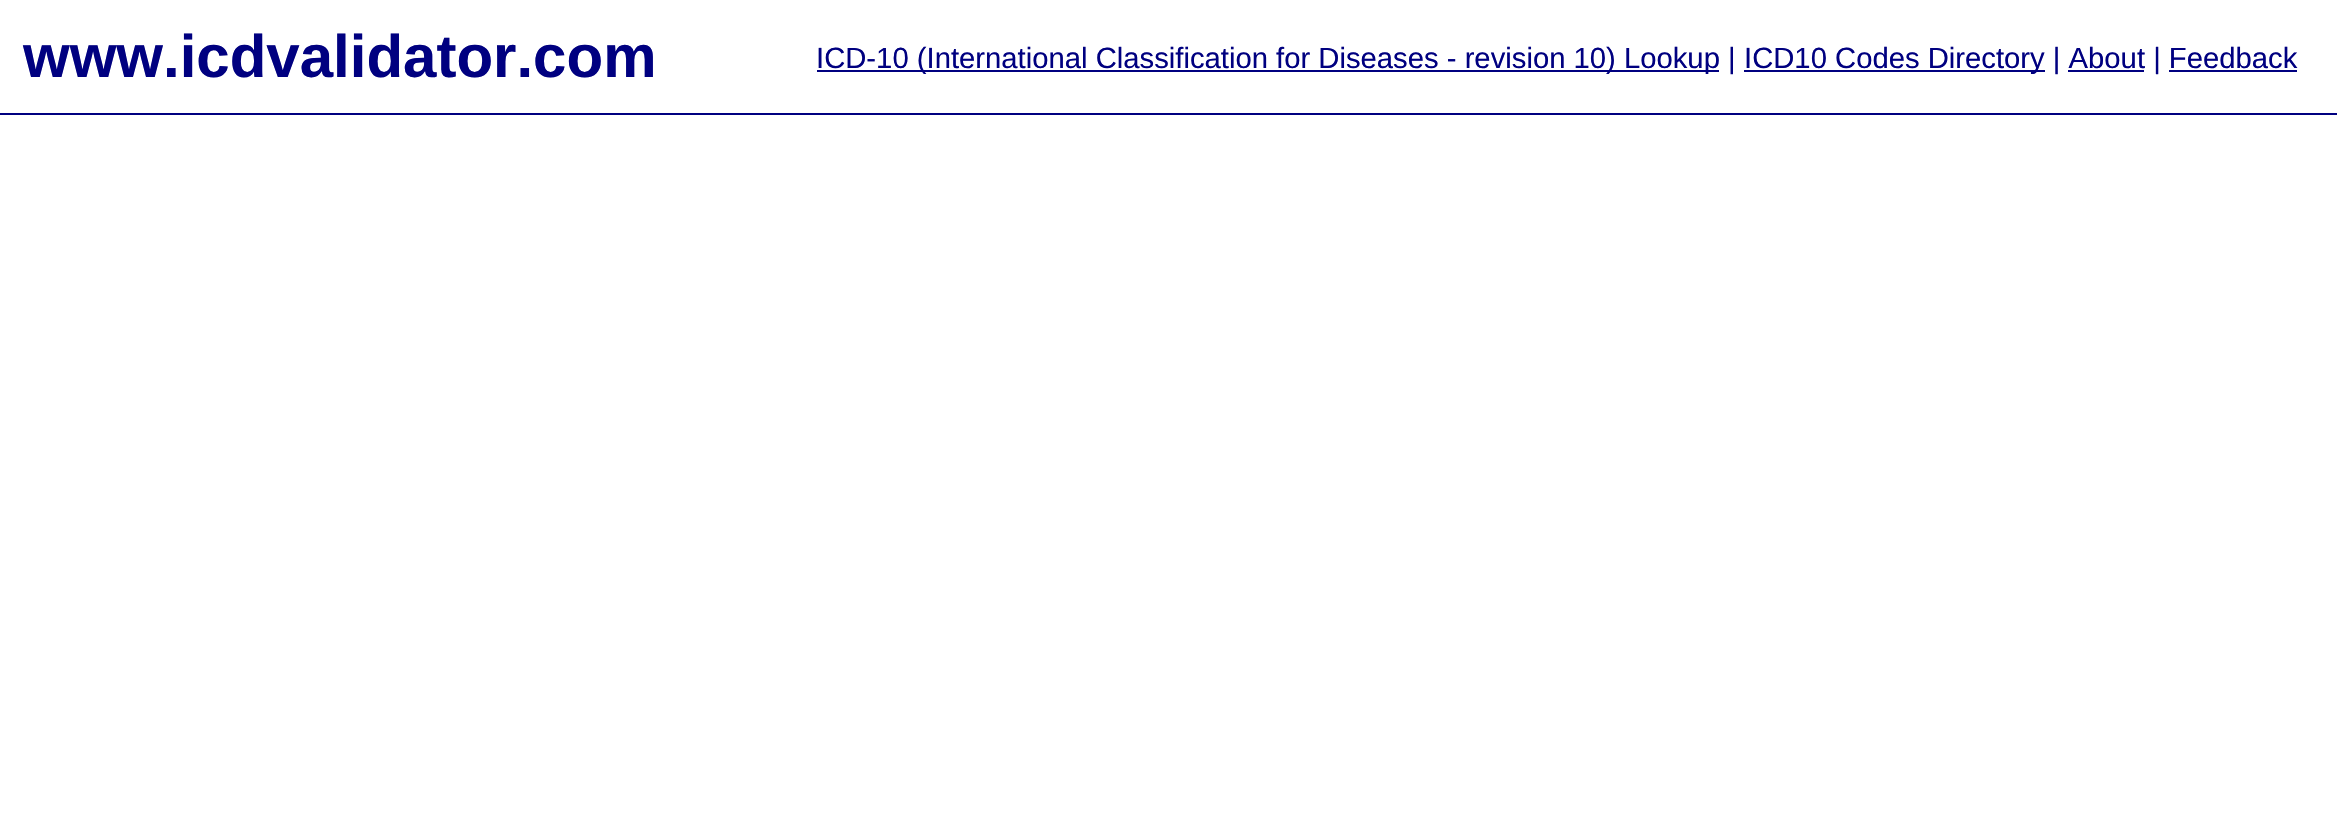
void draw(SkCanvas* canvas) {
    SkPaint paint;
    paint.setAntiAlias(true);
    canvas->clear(0xFFFFFFFF);
    paint.setColor(0xFF000080);
    canvas->drawRect(SkRect::MakeXYWH(0, 113, 2337, 2), paint);
    SkFont font1(fontMgr->matchFamilyStyle("Liberation Sans", SkFontStyle::Bold()), 60);
    font1.setSubpixel(true);
    canvas->drawString("www.icdvalidator.com", 23, 77, font1, paint);
    canvas->drawRect(SkRect::MakeXYWH(817, 70, 902, 2), paint);
    SkFont font2(fontMgr->matchFamilyStyle("Liberation Sans", SkFontStyle::Normal()), 29.25f);
    font2.setSubpixel(true);
    canvas->drawString("ICD-10 (International Classification for Diseases - revision 10) Lookup |", 816, 68, font2, paint);
    canvas->drawRect(SkRect::MakeXYWH(1744, 70, 301, 2), paint);
    canvas->drawString("ICD10 Codes Directory | About | Feedback", 1744, 68, font2, paint);
    canvas->drawRect(SkRect::MakeXYWH(2068, 70, 76, 2), paint);
    canvas->drawRect(SkRect::MakeXYWH(2169, 70, 128, 2), paint);
}
